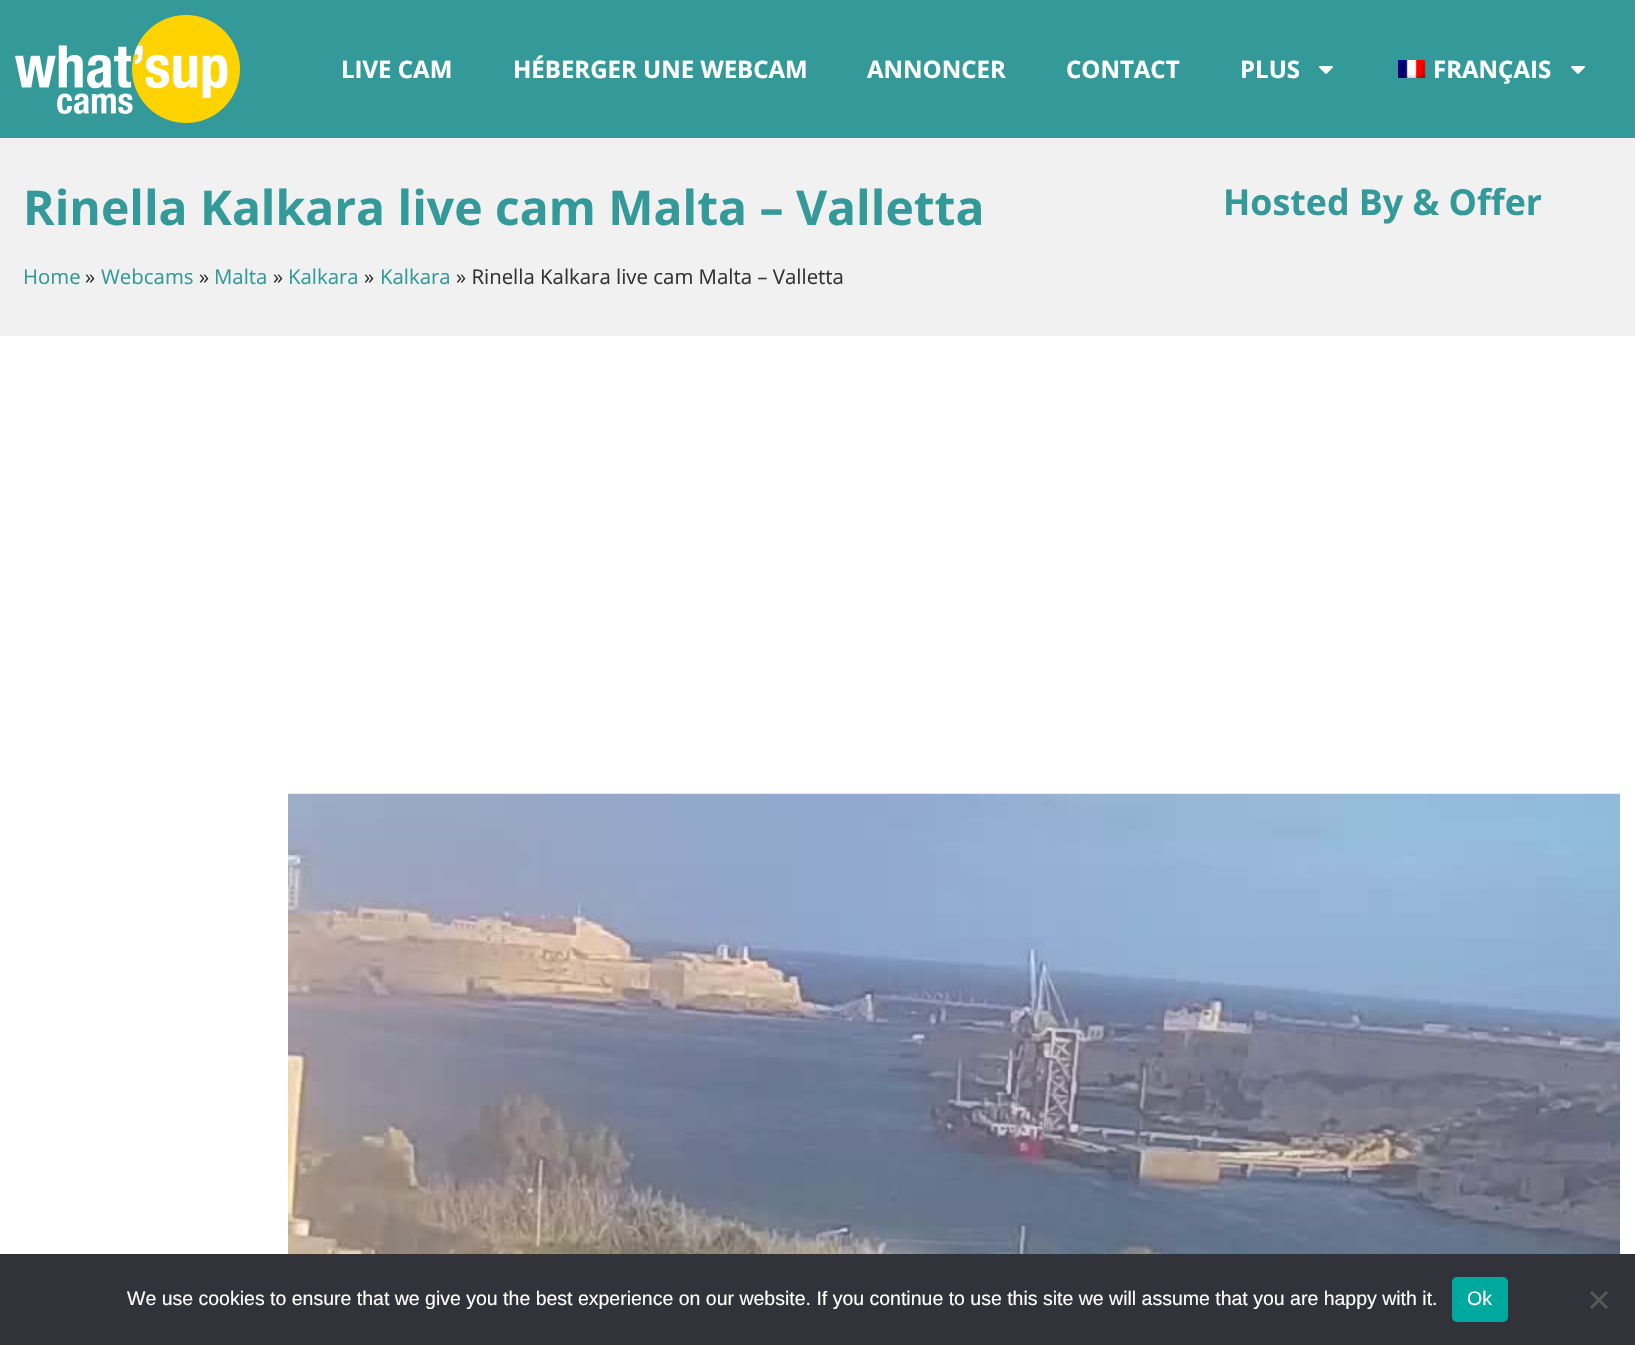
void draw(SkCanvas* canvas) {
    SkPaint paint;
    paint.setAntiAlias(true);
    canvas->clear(0xFFFFFFFF);
    paint.setColor(0xFF339999);
    canvas->drawRect(SkRect::MakeXYWH(0, 0, 1635, 138), paint);
    canvas->drawImageRect(SkImages::DeferredFromEncodedData(SkData::MakeFromFileName("img1.png")), SkRect::MakeXYWH(15, 15, 225, 108), SkSamplingOptions());
    SkFont font1(fontMgr->matchFamilyStyle("Open Sans", SkFontStyle::Bold()), 24);
    font1.setSubpixel(true);
    paint.setColor(0xFFFFFFFF);
    canvas->drawString("LIVE CAM", 341, 78, font1, paint);
    canvas->drawString("HÉBERGER UNE WEBCAM", 513, 78, font1, paint);
    canvas->drawString("ANNONCER", 867, 78, font1, paint);
    canvas->drawString("CONTACT", 1066, 78, font1, paint);
    canvas->drawString("PLUS", 1240, 78, font1, paint);
    canvas->drawImageRect(SkImages::DeferredFromEncodedData(SkData::MakeFromFileName("img2.png")), SkRect::MakeXYWH(1319, 66, 14, 8), SkSamplingOptions());
    canvas->drawImageRect(SkImages::DeferredFromEncodedData(SkData::MakeFromFileName("img3.png")), SkRect::MakeXYWH(1398, 60, 28, 18), SkSamplingOptions());
    canvas->drawString("FRANÇAIS", 1433, 78, font1, paint);
    canvas->drawImageRect(SkImages::DeferredFromEncodedData(SkData::MakeFromFileName("img2.png")), SkRect::MakeXYWH(1571, 66, 14, 8), SkSamplingOptions());
    paint.setColor(0xFFF1F1F1);
    canvas->drawRect(SkRect::MakeXYWH(0, 138, 1635, 198), paint);
    SkFont font2(fontMgr->matchFamilyStyle("Open Sans", SkFontStyle::Bold()), 48);
    font2.setSubpixel(true);
    paint.setColor(0xFF339999);
    canvas->drawString("Rinella Kalkara live cam Malta – Valletta", 23, 225, font2, paint);
    SkFont font3(fontMgr->matchFamilyStyle("Open Sans", SkFontStyle::Normal()), 20.4f);
    font3.setSubpixel(true);
    canvas->drawString("Home", 23, 284, font3, paint);
    paint.setColor(0xFF333333);
    canvas->drawString("»", 85, 284, font3, paint);
    paint.setColor(0xFF339999);
    canvas->drawString("Webcams", 101, 284, font3, paint);
    paint.setColor(0xFF333333);
    canvas->drawString("»", 199, 284, font3, paint);
    paint.setColor(0xFF339999);
    canvas->drawString("Malta", 214, 284, font3, paint);
    paint.setColor(0xFF333333);
    canvas->drawString("»", 273, 284, font3, paint);
    paint.setColor(0xFF339999);
    canvas->drawString("Kalkara", 288, 284, font3, paint);
    paint.setColor(0xFF333333);
    canvas->drawString("»", 364, 284, font3, paint);
    paint.setColor(0xFF339999);
    canvas->drawString("Kalkara", 380, 284, font3, paint);
    paint.setColor(0xFF333333);
    canvas->drawString("» Rinella Kalkara live cam Malta – Valletta", 456, 284, font3, paint);
    SkFont font4(fontMgr->matchFamilyStyle("Open Sans", SkFontStyle::Bold()), 35.75f);
    font4.setSubpixel(true);
    paint.setColor(0xFF339999);
    canvas->drawString("Hosted By & Offer", 1223, 215, font4, paint);
    canvas->drawImageRect(SkImages::DeferredFromEncodedData(SkData::MakeFromFileName("img4.png")), SkRect::MakeXYWH(288, 793, 1332, 461), SkSamplingOptions());
    paint.setColor(0xFF32323A);
    canvas->drawRect(SkRect::MakeXYWH(0, 1254, 1635, 91), paint);
    SkFont font5(fontMgr->matchFamilyStyle("Liberation Sans", SkFontStyle::Normal()), 19.5f);
    font5.setSubpixel(true);
    paint.setColor(0xFFFFFFFF);
    canvas->drawString("We use cookies to ensure that we give you the best experience on our website. If you continue to use this site we will assume that you are happy with it.", 127, 1305, font5, paint);
    paint.setColor(0xFF00A99D);
    canvas->drawRoundRect(SkRect::MakeXYWH(1452, 1277, 56, 45), 5, 5, paint);
    paint.setColor(0xFFFFFFFF);
    canvas->drawString("Ok", 1467, 1305, font5, paint);
    paint.setColor(0xFF59595D);
    canvas->drawPath(SkPathBuilder().moveTo(1606, 1291).lineTo(1608, 1293).lineTo(1592, 1309).lineTo(1590, 1307).close().detach(), paint);
    canvas->drawPath(SkPathBuilder().moveTo(1590, 1293).lineTo(1592, 1291).lineTo(1608, 1307).lineTo(1606, 1309).close().detach(), paint);
}
